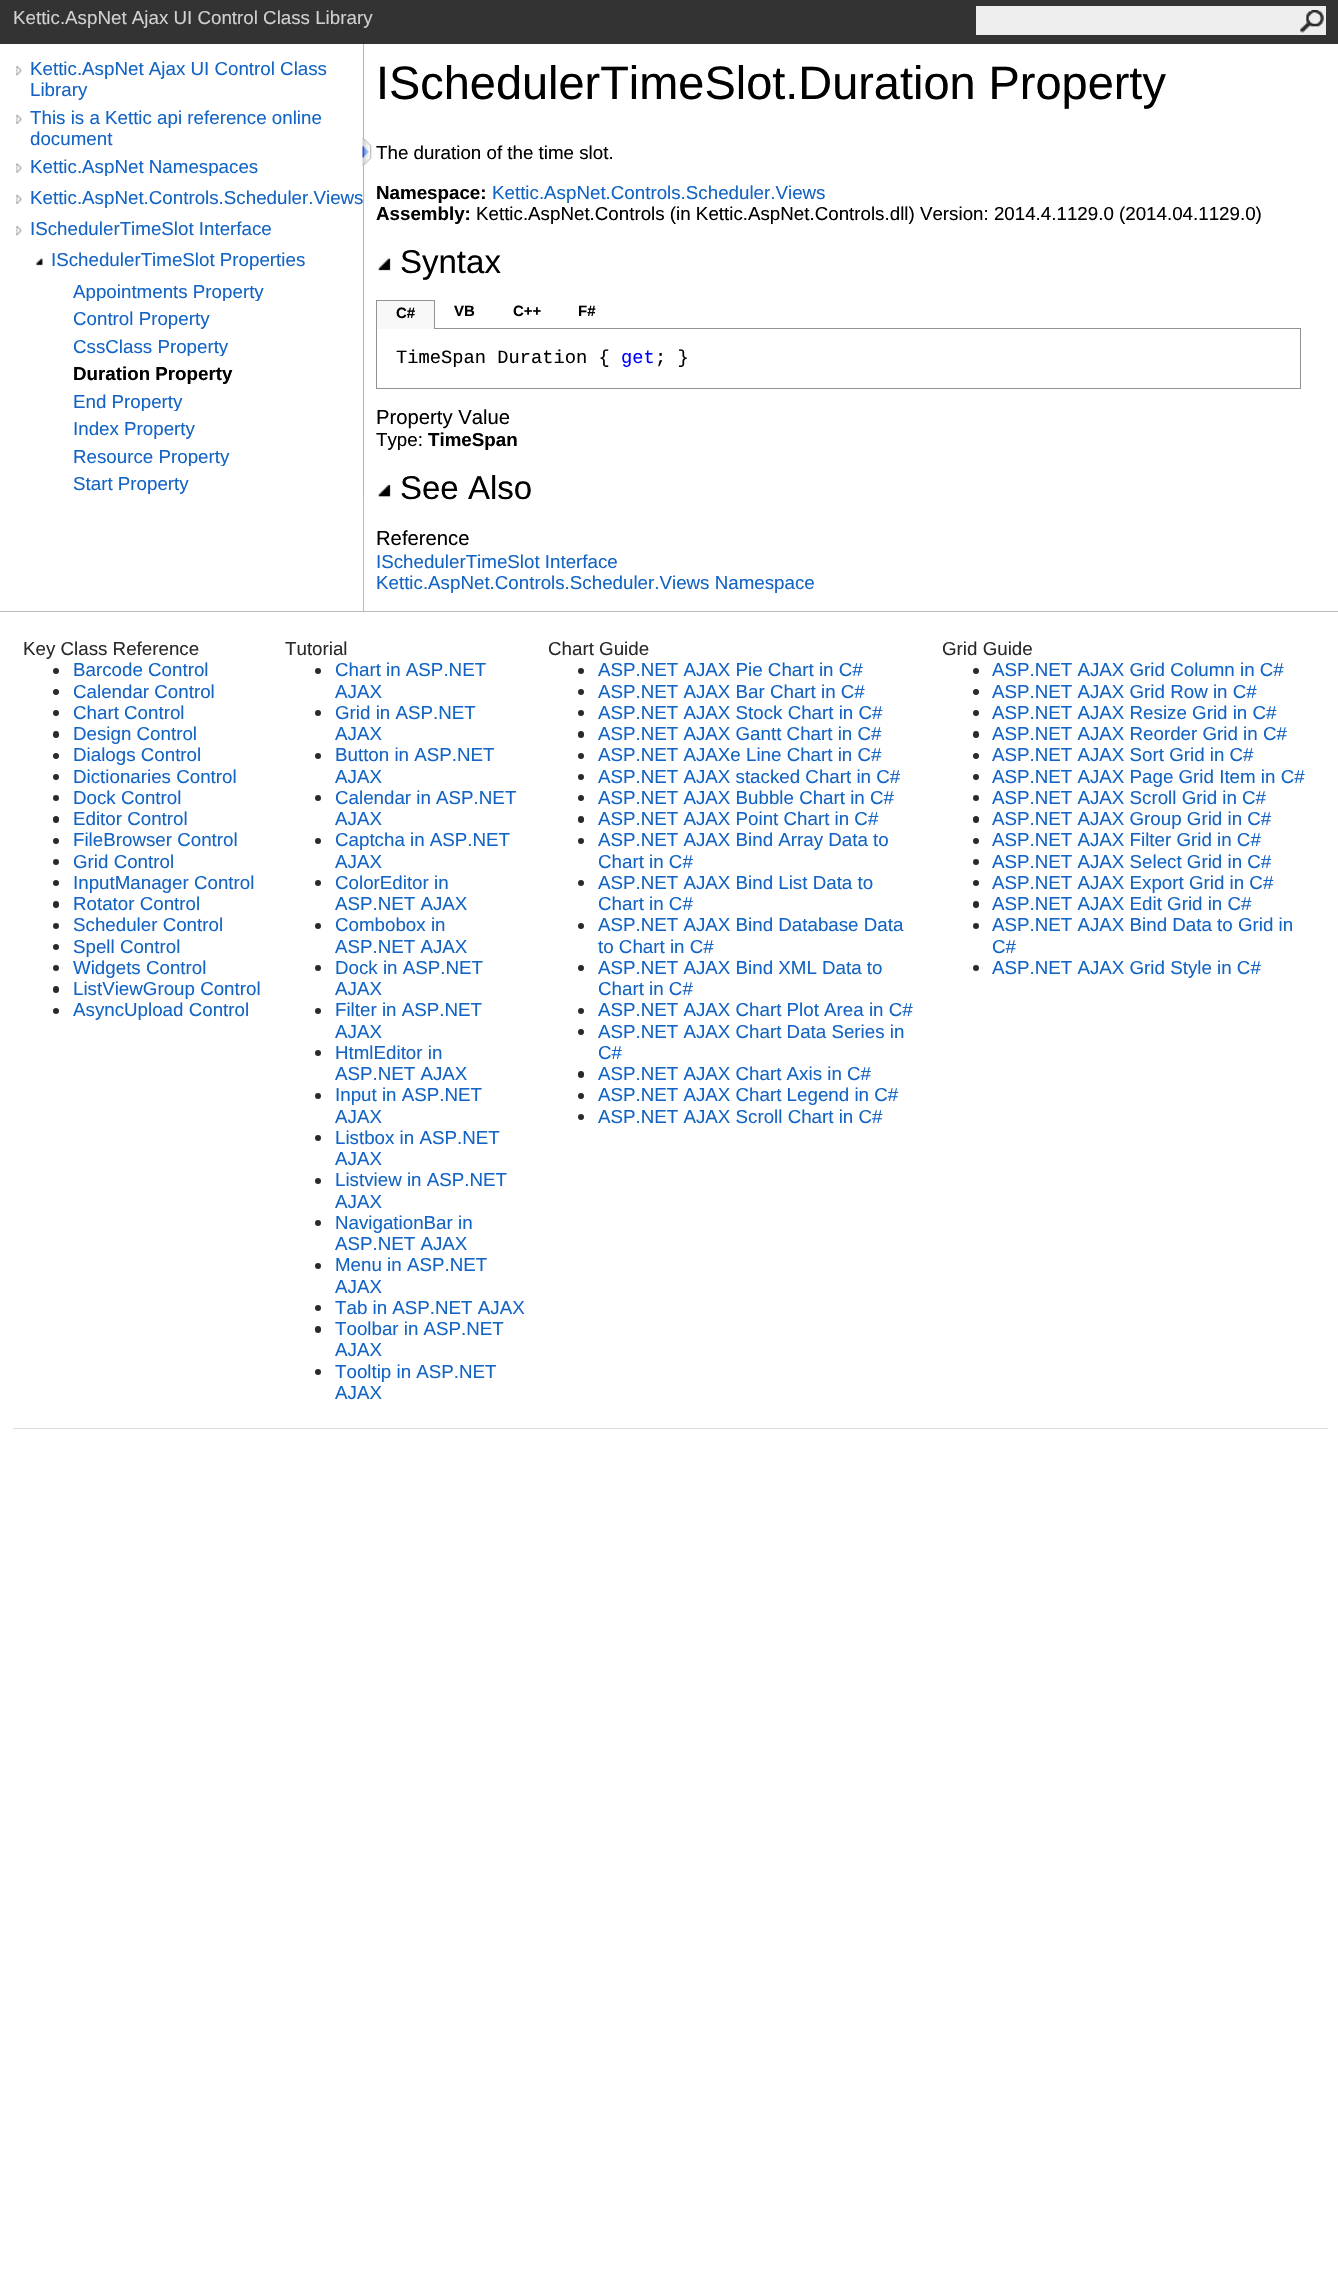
void draw(SkCanvas* canvas) {
    SkPaint paint;
    paint.setAntiAlias(true);
    canvas->clear(0xFFFFFFFF);
    paint.setColor(0xFF333333);
    canvas->drawRect(SkRect::MakeXYWH(0, 0, 1338, 44), paint);
    SkFont font1(fontMgr->matchFamilyStyle("Liberation Sans", SkFontStyle::Normal()), 18.75f);
    font1.setSubpixel(true);
    paint.setColor(0xFFD0D0D0);
    canvas->drawString("Kettic.AspNet Ajax UI Control Class Library", 13, 24, font1, paint);
    paint.setColor(0xFFEEEEEE);
    canvas->drawRect(SkRect::MakeXYWH(976, 6, 350, 29), paint);
    canvas->drawImageRect(SkImages::DeferredFromEncodedData(SkData::MakeFromFileName("img1.png")), SkRect::MakeXYWH(1300, 10, 24, 23), SkSamplingOptions());
    paint.setColor(0xFFB6B6B6);
    canvas->drawRect(SkRect::MakeXYWH(363, 44, 1, 456), paint);
    canvas->drawImageRect(SkImages::DeferredFromEncodedData(SkData::MakeFromFileName("img2.png")), SkRect::MakeXYWH(16, 66, 6, 10), SkSamplingOptions());
    paint.setColor(0xFF1364C4);
    canvas->drawString("Kettic.AspNet Ajax UI Control Class", 30, 75, font1, paint);
    canvas->drawString("Library", 30, 96, font1, paint);
    canvas->drawImageRect(SkImages::DeferredFromEncodedData(SkData::MakeFromFileName("img3.png")), SkRect::MakeXYWH(16, 114, 6, 10), SkSamplingOptions());
    canvas->drawString("This is a Kettic api reference online", 30, 124, font1, paint);
    canvas->drawString("document", 30, 145, font1, paint);
    canvas->drawImageRect(SkImages::DeferredFromEncodedData(SkData::MakeFromFileName("img4.png")), SkRect::MakeXYWH(16, 163, 6, 10), SkSamplingOptions());
    canvas->save();
    canvas->clipRect(SkRect::MakeXYWH(30, 155, 333, 21));
    canvas->drawString("Kettic.AspNet Namespaces", 30, 173, font1, paint);
    canvas->restore();
    canvas->drawImageRect(SkImages::DeferredFromEncodedData(SkData::MakeFromFileName("img3.png")), SkRect::MakeXYWH(16, 194, 6, 10), SkSamplingOptions());
    canvas->drawString("Kettic.AspNet.Controls.Scheduler.Views", 30, 204, font1, paint);
    canvas->drawImageRect(SkImages::DeferredFromEncodedData(SkData::MakeFromFileName("img2.png")), SkRect::MakeXYWH(16, 226, 6, 10), SkSamplingOptions());
    canvas->drawString("ISchedulerTimeSlot Interface", 30, 235, font1, paint);
    canvas->drawImageRect(SkImages::DeferredFromEncodedData(SkData::MakeFromFileName("img5.png")), SkRect::MakeXYWH(36, 258, 7, 8), SkSamplingOptions());
    canvas->drawString("ISchedulerTimeSlot Properties", 51, 266, font1, paint);
    canvas->save();
    canvas->clipRect(SkRect::MakeXYWH(73, 280, 290, 21));
    canvas->drawString("Appointments Property", 73, 298, font1, paint);
    canvas->restore();
    canvas->drawString("Control Property", 73, 325, font1, paint);
    canvas->save();
    canvas->clipRect(SkRect::MakeXYWH(73, 335, 290, 21));
    canvas->drawString("CssClass Property", 73, 353, font1, paint);
    canvas->restore();
    SkFont font2(fontMgr->matchFamilyStyle("Liberation Sans", SkFontStyle::Bold()), 18.75f);
    font2.setSubpixel(true);
    paint.setColor(0xFF000000);
    canvas->drawString("Duration Property", 73, 380, font2, paint);
    canvas->save();
    canvas->clipRect(SkRect::MakeXYWH(73, 390, 290, 21));
    paint.setColor(0xFF1364C4);
    canvas->drawString("End Property", 73, 408, font1, paint);
    canvas->restore();
    canvas->drawString("Index Property", 73, 435, font1, paint);
    canvas->save();
    canvas->clipRect(SkRect::MakeXYWH(73, 445, 290, 21));
    canvas->drawString("Resource Property", 73, 463, font1, paint);
    canvas->restore();
    canvas->drawString("Start Property", 73, 490, font1, paint);
    canvas->drawImageRect(SkImages::DeferredFromEncodedData(SkData::MakeFromFileName("img6.png")), SkRect::MakeXYWH(362, 137, 10, 30), SkSamplingOptions());
    paint.setColor(0xFFBBBBBB);
    canvas->drawRect(SkRect::MakeXYWH(363, 500, 1, 111), paint);
    SkFont font3(fontMgr->matchFamilyStyle("Liberation Sans", SkFontStyle::Normal()), 46.9f);
    font3.setSubpixel(true);
    paint.setColor(0xFF000000);
    canvas->drawString("ISchedulerTimeSlot.Duration Property", 376, 99, font3, paint);
    canvas->drawString("The duration of the time slot.", 376, 159, font1, paint);
    canvas->drawString("Namespace:", 376, 199, font2, paint);
    paint.setColor(0xFF1364C4);
    canvas->drawString("Kettic.AspNet.Controls.Scheduler.Views", 492, 199, font1, paint);
    paint.setColor(0xFF000000);
    canvas->drawString("Assembly:", 376, 220, font2, paint);
    canvas->drawString("Kettic.AspNet.Controls (in Kettic.AspNet.Controls.dll) Version: 2014.4.1129.0 (2014.04.1129.0)", 476, 220, font1, paint);
    canvas->drawImageRect(SkImages::DeferredFromEncodedData(SkData::MakeFromFileName("img7.png")), SkRect::MakeXYWH(378, 258, 13, 13), SkSamplingOptions());
    SkFont font4(fontMgr->matchFamilyStyle("Liberation Sans", SkFontStyle::Normal()), 33);
    font4.setSubpixel(true);
    canvas->drawString("Syntax", 400, 273, font4, paint);
    paint.setStyle(SkPaint::kStroke_Style);
    paint.setStrokeWidth(1);
    paint.setColor(0xFF939393);
    canvas->drawRect(SkRect::MakeXYWH(376.5f, 328.5f, 924, 60), paint);
    paint.setStyle(SkPaint::kFill_Style);
    paint.setColor(0xFFF8F8F8);
    canvas->drawRect(SkRect::MakeXYWH(377, 301, 57, 28), paint);
    paint.setColor(0xFF939393);
    canvas->drawRect(SkRect::MakeXYWH(376, 300, 59, 1), paint);
    canvas->drawRect(SkRect::MakeXYWH(434, 300, 1, 29), paint);
    canvas->drawRect(SkRect::MakeXYWH(376, 300, 1, 29), paint);
    SkFont font5(fontMgr->matchFamilyStyle("Liberation Sans", SkFontStyle::Bold()), 15);
    font5.setSubpixel(true);
    paint.setColor(0xFF000000);
    canvas->drawString("C#", 396, 318, font5, paint);
    canvas->drawString("VB", 454, 316, font5, paint);
    canvas->drawString("C++", 513, 316, font5, paint);
    canvas->drawString("F#", 578, 316, font5, paint);
    SkFont font6(fontMgr->matchFamilyStyle("Liberation Mono", SkFontStyle::Normal()), 18.75f);
    font6.setSubpixel(true);
    canvas->drawString("TimeSpan Duration {", 396, 363, font6, paint);
    paint.setColor(0xFF0000FF);
    canvas->drawString("get", 621, 363, font6, paint);
    paint.setColor(0xFF000000);
    canvas->drawString("; }", 655, 363, font6, paint);
    SkFont font7(fontMgr->matchFamilyStyle("Liberation Sans", SkFontStyle::Normal()), 20.25f);
    font7.setSubpixel(true);
    canvas->drawString("Property Value", 376, 424, font7, paint);
    canvas->drawString("Type:", 376, 446, font1, paint);
    canvas->drawString("TimeSpan", 428, 446, font2, paint);
    canvas->drawImageRect(SkImages::DeferredFromEncodedData(SkData::MakeFromFileName("img8.png")), SkRect::MakeXYWH(378, 484, 13, 13), SkSamplingOptions());
    canvas->drawString("See Also", 400, 499, font4, paint);
    canvas->drawString("Reference", 376, 545, font7, paint);
    paint.setColor(0xFF1364C4);
    canvas->drawString("ISchedulerTimeSlot Interface", 376, 568, font1, paint);
    canvas->drawString("Kettic.AspNet.Controls.Scheduler.Views Namespace", 376, 589, font1, paint);
    paint.setColor(0xFFBBBBBB);
    canvas->drawRect(SkRect::MakeXYWH(0, 611, 1338, 1), paint);
    paint.setColor(0xFF2A2A2A);
    canvas->drawString("Key Class Reference", 23, 655, font1, paint);
    canvas->drawCircle(56, 671, 3, paint);
    paint.setColor(0xFF1364C4);
    canvas->drawString("Barcode Control", 73, 676, font1, paint);
    paint.setColor(0xFF2A2A2A);
    canvas->drawCircle(56, 692, 3, paint);
    paint.setColor(0xFF1364C4);
    canvas->drawString("Calendar Control", 73, 698, font1, paint);
    paint.setColor(0xFF2A2A2A);
    canvas->drawCircle(56, 713, 3, paint);
    paint.setColor(0xFF1364C4);
    canvas->drawString("Chart Control", 73, 719, font1, paint);
    paint.setColor(0xFF2A2A2A);
    canvas->drawRoundRect(SkRect::MakeXYWH(53, 731, 6, 7), 3, 3, paint);
    paint.setColor(0xFF1364C4);
    canvas->drawString("Design Control", 73, 740, font1, paint);
    paint.setColor(0xFF2A2A2A);
    canvas->drawCircle(56, 756, 3, paint);
    paint.setColor(0xFF1364C4);
    canvas->drawString("Dialogs Control", 73, 761, font1, paint);
    paint.setColor(0xFF2A2A2A);
    canvas->drawCircle(56, 777, 3, paint);
    paint.setColor(0xFF1364C4);
    canvas->drawString("Dictionaries Control", 73, 783, font1, paint);
    paint.setColor(0xFF2A2A2A);
    canvas->drawCircle(56, 798, 3, paint);
    paint.setColor(0xFF1364C4);
    canvas->drawString("Dock Control", 73, 804, font1, paint);
    paint.setColor(0xFF2A2A2A);
    canvas->drawRoundRect(SkRect::MakeXYWH(53, 816, 6, 7), 3, 3, paint);
    paint.setColor(0xFF1364C4);
    canvas->drawString("Editor Control", 73, 825, font1, paint);
    paint.setColor(0xFF2A2A2A);
    canvas->drawCircle(56, 841, 3, paint);
    paint.setColor(0xFF1364C4);
    canvas->drawString("FileBrowser Control", 73, 846, font1, paint);
    paint.setColor(0xFF2A2A2A);
    canvas->drawCircle(56, 862, 3, paint);
    paint.setColor(0xFF1364C4);
    canvas->drawString("Grid Control", 73, 868, font1, paint);
    paint.setColor(0xFF2A2A2A);
    canvas->drawCircle(56, 883, 3, paint);
    paint.setColor(0xFF1364C4);
    canvas->drawString("InputManager Control", 73, 889, font1, paint);
    paint.setColor(0xFF2A2A2A);
    canvas->drawRoundRect(SkRect::MakeXYWH(53, 901, 6, 7), 3, 3, paint);
    paint.setColor(0xFF1364C4);
    canvas->drawString("Rotator Control", 73, 910, font1, paint);
    paint.setColor(0xFF2A2A2A);
    canvas->drawCircle(56, 926, 3, paint);
    paint.setColor(0xFF1364C4);
    canvas->drawString("Scheduler Control", 73, 931, font1, paint);
    paint.setColor(0xFF2A2A2A);
    canvas->drawCircle(56, 947, 3, paint);
    paint.setColor(0xFF1364C4);
    canvas->drawString("Spell Control", 73, 953, font1, paint);
    paint.setColor(0xFF2A2A2A);
    canvas->drawCircle(56, 968, 3, paint);
    paint.setColor(0xFF1364C4);
    canvas->drawString("Widgets Control", 73, 974, font1, paint);
    paint.setColor(0xFF2A2A2A);
    canvas->drawRoundRect(SkRect::MakeXYWH(53, 986, 6, 7), 3, 3, paint);
    paint.setColor(0xFF1364C4);
    canvas->drawString("ListViewGroup Control", 73, 995, font1, paint);
    paint.setColor(0xFF2A2A2A);
    canvas->drawCircle(56, 1011, 3, paint);
    paint.setColor(0xFF1364C4);
    canvas->drawString("AsyncUpload Control", 73, 1016, font1, paint);
    paint.setColor(0xFF2A2A2A);
    canvas->drawString("Tutorial", 285, 655, font1, paint);
    canvas->drawCircle(318, 671, 3, paint);
    paint.setColor(0xFF1364C4);
    canvas->drawString("Chart in ASP.NET", 335, 676, font1, paint);
    canvas->drawString("AJAX", 335, 698, font1, paint);
    paint.setColor(0xFF2A2A2A);
    canvas->drawCircle(318, 713, 3, paint);
    paint.setColor(0xFF1364C4);
    canvas->drawString("Grid in ASP.NET", 335, 719, font1, paint);
    canvas->drawString("AJAX", 335, 740, font1, paint);
    paint.setColor(0xFF2A2A2A);
    canvas->drawCircle(318, 756, 3, paint);
    paint.setColor(0xFF1364C4);
    canvas->drawString("Button in ASP.NET", 335, 761, font1, paint);
    canvas->drawString("AJAX", 335, 783, font1, paint);
    paint.setColor(0xFF2A2A2A);
    canvas->drawCircle(318, 798, 3, paint);
    paint.setColor(0xFF1364C4);
    canvas->drawString("Calendar in ASP.NET", 335, 804, font1, paint);
    canvas->drawString("AJAX", 335, 825, font1, paint);
    paint.setColor(0xFF2A2A2A);
    canvas->drawCircle(318, 841, 3, paint);
    paint.setColor(0xFF1364C4);
    canvas->drawString("Captcha in ASP.NET", 335, 846, font1, paint);
    canvas->drawString("AJAX", 335, 868, font1, paint);
    paint.setColor(0xFF2A2A2A);
    canvas->drawCircle(318, 883, 3, paint);
    paint.setColor(0xFF1364C4);
    canvas->drawString("ColorEditor in", 335, 889, font1, paint);
    canvas->drawString("ASP.NET AJAX", 335, 910, font1, paint);
    paint.setColor(0xFF2A2A2A);
    canvas->drawCircle(318, 926, 3, paint);
    paint.setColor(0xFF1364C4);
    canvas->drawString("Combobox in", 335, 931, font1, paint);
    canvas->drawString("ASP.NET AJAX", 335, 953, font1, paint);
    paint.setColor(0xFF2A2A2A);
    canvas->drawCircle(318, 968, 3, paint);
    paint.setColor(0xFF1364C4);
    canvas->drawString("Dock in ASP.NET", 335, 974, font1, paint);
    canvas->drawString("AJAX", 335, 995, font1, paint);
    paint.setColor(0xFF2A2A2A);
    canvas->drawCircle(318, 1011, 3, paint);
    paint.setColor(0xFF1364C4);
    canvas->drawString("Filter in ASP.NET", 335, 1016, font1, paint);
    canvas->drawString("AJAX", 335, 1038, font1, paint);
    paint.setColor(0xFF2A2A2A);
    canvas->drawCircle(318, 1053, 3, paint);
    paint.setColor(0xFF1364C4);
    canvas->drawString("HtmlEditor in", 335, 1059, font1, paint);
    canvas->drawString("ASP.NET AJAX", 335, 1080, font1, paint);
    paint.setColor(0xFF2A2A2A);
    canvas->drawCircle(318, 1096, 3, paint);
    paint.setColor(0xFF1364C4);
    canvas->drawString("Input in ASP.NET", 335, 1101, font1, paint);
    canvas->drawString("AJAX", 335, 1123, font1, paint);
    paint.setColor(0xFF2A2A2A);
    canvas->drawCircle(318, 1138, 3, paint);
    paint.setColor(0xFF1364C4);
    canvas->drawString("Listbox in ASP.NET", 335, 1144, font1, paint);
    canvas->drawString("AJAX", 335, 1165, font1, paint);
    paint.setColor(0xFF2A2A2A);
    canvas->drawCircle(318, 1181, 3, paint);
    paint.setColor(0xFF1364C4);
    canvas->drawString("Listview in ASP.NET", 335, 1186, font1, paint);
    canvas->drawString("AJAX", 335, 1208, font1, paint);
    paint.setColor(0xFF2A2A2A);
    canvas->drawCircle(318, 1223, 3, paint);
    paint.setColor(0xFF1364C4);
    canvas->drawString("NavigationBar in", 335, 1229, font1, paint);
    canvas->drawString("ASP.NET AJAX", 335, 1250, font1, paint);
    paint.setColor(0xFF2A2A2A);
    canvas->drawCircle(318, 1266, 3, paint);
    paint.setColor(0xFF1364C4);
    canvas->drawString("Menu in ASP.NET", 335, 1271, font1, paint);
    canvas->drawString("AJAX", 335, 1293, font1, paint);
    paint.setColor(0xFF2A2A2A);
    canvas->drawCircle(318, 1308, 3, paint);
    paint.setColor(0xFF1364C4);
    canvas->drawString("Tab in ASP.NET AJAX", 335, 1314, font1, paint);
    paint.setColor(0xFF2A2A2A);
    canvas->drawRoundRect(SkRect::MakeXYWH(315, 1326, 6, 7), 3, 3, paint);
    paint.setColor(0xFF1364C4);
    canvas->drawString("Toolbar in ASP.NET", 335, 1335, font1, paint);
    canvas->drawString("AJAX", 335, 1356, font1, paint);
    paint.setColor(0xFF2A2A2A);
    canvas->drawCircle(318, 1372, 3, paint);
    paint.setColor(0xFF1364C4);
    canvas->drawString("Tooltip in ASP.NET", 335, 1378, font1, paint);
    canvas->drawString("AJAX", 335, 1399, font1, paint);
    paint.setColor(0xFF2A2A2A);
    canvas->drawString("Chart Guide", 548, 655, font1, paint);
    canvas->drawCircle(581, 671, 3, paint);
    paint.setColor(0xFF1364C4);
    canvas->drawString("ASP.NET AJAX Pie Chart in C#", 598, 676, font1, paint);
    paint.setColor(0xFF2A2A2A);
    canvas->drawCircle(581, 692, 3, paint);
    paint.setColor(0xFF1364C4);
    canvas->drawString("ASP.NET AJAX Bar Chart in C#", 598, 698, font1, paint);
    paint.setColor(0xFF2A2A2A);
    canvas->drawCircle(581, 713, 3, paint);
    paint.setColor(0xFF1364C4);
    canvas->drawString("ASP.NET AJAX Stock Chart in C#", 598, 719, font1, paint);
    paint.setColor(0xFF2A2A2A);
    canvas->drawRoundRect(SkRect::MakeXYWH(578, 731, 6, 7), 3, 3, paint);
    paint.setColor(0xFF1364C4);
    canvas->drawString("ASP.NET AJAX Gantt Chart in C#", 598, 740, font1, paint);
    paint.setColor(0xFF2A2A2A);
    canvas->drawCircle(581, 756, 3, paint);
    paint.setColor(0xFF1364C4);
    canvas->drawString("ASP.NET AJAXe Line Chart in C#", 598, 761, font1, paint);
    paint.setColor(0xFF2A2A2A);
    canvas->drawCircle(581, 777, 3, paint);
    paint.setColor(0xFF1364C4);
    canvas->drawString("ASP.NET AJAX stacked Chart in C#", 598, 783, font1, paint);
    paint.setColor(0xFF2A2A2A);
    canvas->drawCircle(581, 798, 3, paint);
    paint.setColor(0xFF1364C4);
    canvas->drawString("ASP.NET AJAX Bubble Chart in C#", 598, 804, font1, paint);
    paint.setColor(0xFF2A2A2A);
    canvas->drawRoundRect(SkRect::MakeXYWH(578, 816, 6, 7), 3, 3, paint);
    paint.setColor(0xFF1364C4);
    canvas->drawString("ASP.NET AJAX Point Chart in C#", 598, 825, font1, paint);
    paint.setColor(0xFF2A2A2A);
    canvas->drawCircle(581, 841, 3, paint);
    paint.setColor(0xFF1364C4);
    canvas->drawString("ASP.NET AJAX Bind Array Data to", 598, 846, font1, paint);
    canvas->drawString("Chart in C#", 598, 868, font1, paint);
    paint.setColor(0xFF2A2A2A);
    canvas->drawCircle(581, 883, 3, paint);
    paint.setColor(0xFF1364C4);
    canvas->drawString("ASP.NET AJAX Bind List Data to", 598, 889, font1, paint);
    canvas->drawString("Chart in C#", 598, 910, font1, paint);
    paint.setColor(0xFF2A2A2A);
    canvas->drawCircle(581, 926, 3, paint);
    paint.setColor(0xFF1364C4);
    canvas->drawString("ASP.NET AJAX Bind Database Data", 598, 931, font1, paint);
    canvas->drawString("to Chart in C#", 598, 953, font1, paint);
    paint.setColor(0xFF2A2A2A);
    canvas->drawCircle(581, 968, 3, paint);
    paint.setColor(0xFF1364C4);
    canvas->drawString("ASP.NET AJAX Bind XML Data to", 598, 974, font1, paint);
    canvas->drawString("Chart in C#", 598, 995, font1, paint);
    paint.setColor(0xFF2A2A2A);
    canvas->drawCircle(581, 1011, 3, paint);
    paint.setColor(0xFF1364C4);
    canvas->drawString("ASP.NET AJAX Chart Plot Area in C#", 598, 1016, font1, paint);
    paint.setColor(0xFF2A2A2A);
    canvas->drawCircle(581, 1032, 3, paint);
    paint.setColor(0xFF1364C4);
    canvas->drawString("ASP.NET AJAX Chart Data Series in", 598, 1038, font1, paint);
    canvas->drawString("C#", 598, 1059, font1, paint);
    paint.setColor(0xFF2A2A2A);
    canvas->drawRoundRect(SkRect::MakeXYWH(578, 1071, 6, 7), 3, 3, paint);
    paint.setColor(0xFF1364C4);
    canvas->drawString("ASP.NET AJAX Chart Axis in C#", 598, 1080, font1, paint);
    paint.setColor(0xFF2A2A2A);
    canvas->drawCircle(581, 1096, 3, paint);
    paint.setColor(0xFF1364C4);
    canvas->drawString("ASP.NET AJAX Chart Legend in C#", 598, 1101, font1, paint);
    paint.setColor(0xFF2A2A2A);
    canvas->drawCircle(581, 1117, 3, paint);
    paint.setColor(0xFF1364C4);
    canvas->drawString("ASP.NET AJAX Scroll Chart in C#", 598, 1123, font1, paint);
    paint.setColor(0xFFDBDBDB);
    canvas->drawRect(SkRect::MakeXYWH(13, 1428, 1315, 1), paint);
    paint.setColor(0xFF2A2A2A);
    canvas->drawString("Grid Guide", 942, 655, font1, paint);
    canvas->drawCircle(976, 671, 3, paint);
    paint.setColor(0xFF1364C4);
    canvas->drawString("ASP.NET AJAX Grid Column in C#", 992, 676, font1, paint);
    paint.setColor(0xFF2A2A2A);
    canvas->drawCircle(976, 692, 3, paint);
    paint.setColor(0xFF1364C4);
    canvas->drawString("ASP.NET AJAX Grid Row in C#", 992, 698, font1, paint);
    paint.setColor(0xFF2A2A2A);
    canvas->drawCircle(976, 713, 3, paint);
    paint.setColor(0xFF1364C4);
    canvas->drawString("ASP.NET AJAX Resize Grid in C#", 992, 719, font1, paint);
    paint.setColor(0xFF2A2A2A);
    canvas->drawRoundRect(SkRect::MakeXYWH(973, 731, 6, 7), 3, 3, paint);
    paint.setColor(0xFF1364C4);
    canvas->drawString("ASP.NET AJAX Reorder Grid in C#", 992, 740, font1, paint);
    paint.setColor(0xFF2A2A2A);
    canvas->drawCircle(976, 756, 3, paint);
    paint.setColor(0xFF1364C4);
    canvas->drawString("ASP.NET AJAX Sort Grid in C#", 992, 761, font1, paint);
    paint.setColor(0xFF2A2A2A);
    canvas->drawCircle(976, 777, 3, paint);
    paint.setColor(0xFF1364C4);
    canvas->drawString("ASP.NET AJAX Page Grid Item in C#", 992, 783, font1, paint);
    paint.setColor(0xFF2A2A2A);
    canvas->drawCircle(976, 798, 3, paint);
    paint.setColor(0xFF1364C4);
    canvas->drawString("ASP.NET AJAX Scroll Grid in C#", 992, 804, font1, paint);
    paint.setColor(0xFF2A2A2A);
    canvas->drawRoundRect(SkRect::MakeXYWH(973, 816, 6, 7), 3, 3, paint);
    paint.setColor(0xFF1364C4);
    canvas->drawString("ASP.NET AJAX Group Grid in C#", 992, 825, font1, paint);
    paint.setColor(0xFF2A2A2A);
    canvas->drawCircle(976, 841, 3, paint);
    paint.setColor(0xFF1364C4);
    canvas->drawString("ASP.NET AJAX Filter Grid in C#", 992, 846, font1, paint);
    paint.setColor(0xFF2A2A2A);
    canvas->drawCircle(976, 862, 3, paint);
    paint.setColor(0xFF1364C4);
    canvas->drawString("ASP.NET AJAX Select Grid in C#", 992, 868, font1, paint);
    paint.setColor(0xFF2A2A2A);
    canvas->drawCircle(976, 883, 3, paint);
    paint.setColor(0xFF1364C4);
    canvas->drawString("ASP.NET AJAX Export Grid in C#", 992, 889, font1, paint);
    paint.setColor(0xFF2A2A2A);
    canvas->drawRoundRect(SkRect::MakeXYWH(973, 901, 6, 7), 3, 3, paint);
    paint.setColor(0xFF1364C4);
    canvas->drawString("ASP.NET AJAX Edit Grid in C#", 992, 910, font1, paint);
    paint.setColor(0xFF2A2A2A);
    canvas->drawCircle(976, 926, 3, paint);
    paint.setColor(0xFF1364C4);
    canvas->drawString("ASP.NET AJAX Bind Data to Grid in", 992, 931, font1, paint);
    canvas->drawString("C#", 992, 953, font1, paint);
    paint.setColor(0xFF2A2A2A);
    canvas->drawCircle(976, 968, 3, paint);
    paint.setColor(0xFF1364C4);
    canvas->drawString("ASP.NET AJAX Grid Style in C#", 992, 974, font1, paint);
}
